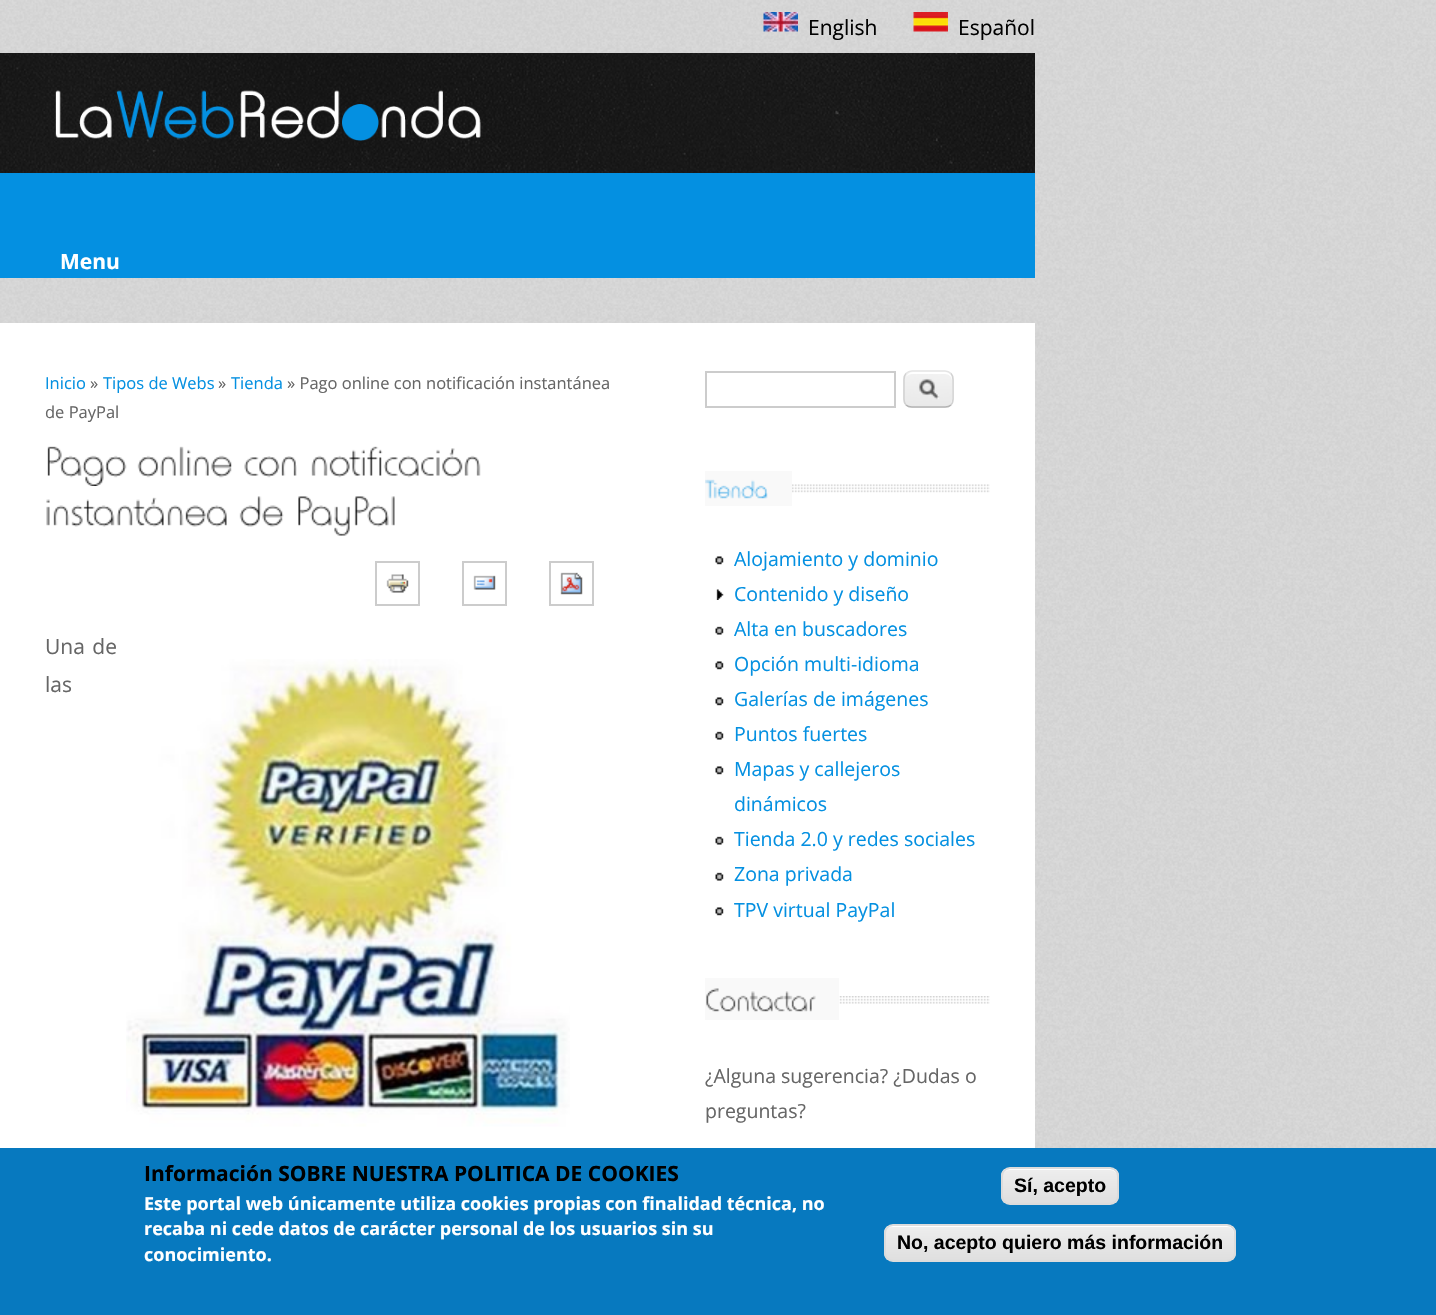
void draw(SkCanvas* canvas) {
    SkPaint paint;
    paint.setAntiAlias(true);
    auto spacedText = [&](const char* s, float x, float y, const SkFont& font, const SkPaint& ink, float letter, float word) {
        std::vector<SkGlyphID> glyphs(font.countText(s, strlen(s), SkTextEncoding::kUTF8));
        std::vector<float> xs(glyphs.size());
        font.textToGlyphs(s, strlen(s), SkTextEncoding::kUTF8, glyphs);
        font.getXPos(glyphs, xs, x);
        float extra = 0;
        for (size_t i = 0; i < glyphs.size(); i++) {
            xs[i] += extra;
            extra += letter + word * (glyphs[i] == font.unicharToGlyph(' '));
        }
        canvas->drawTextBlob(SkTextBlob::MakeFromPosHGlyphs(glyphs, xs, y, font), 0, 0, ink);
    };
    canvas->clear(0xFFFFFFFF);
    canvas->drawImageRect(SkImages::DeferredFromEncodedData(SkData::MakeFromFileName("img1.png")), SkRect::MakeXYWH(0, 0, 1436, 1148), SkSamplingOptions());
    canvas->drawImageRect(SkImages::DeferredFromEncodedData(SkData::MakeFromFileName("img2.png")), SkRect::MakeXYWH(763, 12, 35, 20), SkSamplingOptions());
    SkFont font1(fontMgr->matchFamilyStyle("Open Sans", SkFontStyle::Normal()), 21);
    font1.setSubpixel(true);
    paint.setColor(0xFF000000);
    canvas->drawString("English", 808, 35, font1, paint);
    canvas->drawImageRect(SkImages::DeferredFromEncodedData(SkData::MakeFromFileName("img3.png")), SkRect::MakeXYWH(913, 12, 35, 20), SkSamplingOptions());
    canvas->drawString("Español", 958, 35, font1, paint);
    paint.setColor(0xFF111111);
    canvas->drawRect(SkRect::MakeXYWH(0, 53, 1035, 120), paint);
    canvas->drawImageRect(SkImages::DeferredFromEncodedData(SkData::MakeFromFileName("img4.png")), SkRect::MakeXYWH(0, 53, 1035, 120), SkSamplingOptions());
    canvas->drawImageRect(SkImages::DeferredFromEncodedData(SkData::MakeFromFileName("img5.png")), SkRect::MakeXYWH(55, 90, 426, 51), SkSamplingOptions());
    paint.setColor(0xFF0490E1);
    canvas->drawRect(SkRect::MakeXYWH(0, 173, 1035, 105), paint);
    SkFont font2(fontMgr->matchFamilyStyle("Open Sans", SkFontStyle::Bold()), 21);
    font2.setSubpixel(true);
    paint.setColor(0xFFFFFFFF);
    canvas->drawString("Menu", 60, 269, font2, paint);
    canvas->drawRect(SkRect::MakeXYWH(0, 323, 1035, 825), paint);
    SkFont font3(fontMgr->matchFamilyStyle("Open Sans", SkFontStyle::Normal()), 16.5f);
    font3.setSubpixel(true);
    paint.setColor(0xFF0490E1);
    canvas->drawString("Inicio", 45, 389, font3, paint);
    paint.setColor(0xFF666666);
    canvas->drawString("»", 90, 389, font3, paint);
    paint.setColor(0xFF0490E1);
    canvas->drawString("Tipos de Webs", 103, 389, font3, paint);
    paint.setColor(0xFF666666);
    canvas->drawString("»", 218, 389, font3, paint);
    paint.setColor(0xFF0490E1);
    canvas->drawString("Tienda", 231, 389, font3, paint);
    paint.setColor(0xFF666666);
    canvas->drawString("» Pago online con notificación instantánea", 287, 389, font3, paint);
    canvas->drawString("de PayPal", 45, 418, font3, paint);
    canvas->drawImageRect(SkImages::DeferredFromEncodedData(SkData::MakeFromFileName("img6.png")), SkRect::MakeXYWH(47, 446, 80, 40), SkSamplingOptions());
    canvas->drawImageRect(SkImages::DeferredFromEncodedData(SkData::MakeFromFileName("img7.png")), SkRect::MakeXYWH(137, 446, 95, 32), SkSamplingOptions());
    canvas->drawImageRect(SkImages::DeferredFromEncodedData(SkData::MakeFromFileName("img8.png")), SkRect::MakeXYWH(244, 456, 53, 22), SkSamplingOptions());
    canvas->drawImageRect(SkImages::DeferredFromEncodedData(SkData::MakeFromFileName("img9.png")), SkRect::MakeXYWH(311, 446, 170, 32), SkSamplingOptions());
    canvas->drawImageRect(SkImages::DeferredFromEncodedData(SkData::MakeFromFileName("img10.png")), SkRect::MakeXYWH(46, 497, 181, 30), SkSamplingOptions());
    canvas->drawImageRect(SkImages::DeferredFromEncodedData(SkData::MakeFromFileName("img11.png")), SkRect::MakeXYWH(239, 496, 45, 31), SkSamplingOptions());
    canvas->drawImageRect(SkImages::DeferredFromEncodedData(SkData::MakeFromFileName("img12.png")), SkRect::MakeXYWH(298, 496, 97, 40), SkSamplingOptions());
    paint.setStyle(SkPaint::kStroke_Style);
    paint.setStrokeWidth(2);
    paint.setColor(0xFFCCCCCC);
    canvas->drawRect(SkRect::MakeXYWH(376, 562, 43, 43), paint);
    canvas->drawRect(SkRect::MakeXYWH(463, 562, 43, 43), paint);
    canvas->drawRect(SkRect::MakeXYWH(550, 562, 43, 43), paint);
    canvas->drawImageRect(SkImages::DeferredFromEncodedData(SkData::MakeFromFileName("img13.png")), SkRect::MakeXYWH(386, 574, 23, 19), SkSamplingOptions());
    canvas->drawImageRect(SkImages::DeferredFromEncodedData(SkData::MakeFromFileName("img14.png")), SkRect::MakeXYWH(473, 575, 23, 15), SkSamplingOptions());
    canvas->drawImageRect(SkImages::DeferredFromEncodedData(SkData::MakeFromFileName("img15.png")), SkRect::MakeXYWH(560, 572, 23, 23), SkSamplingOptions());
    paint.setStyle(SkPaint::kFill_Style);
    paint.setColor(0xFF666666);
    spacedText("Una de", 45, 654, font1, paint, 0, 2);
    canvas->drawString("las", 45, 692, font1, paint);
    canvas->drawImageRect(SkImages::DeferredFromEncodedData(SkData::MakeFromFileName("img16.png")), SkRect::MakeXYWH(126, 659, 444, 468), SkSamplingOptions());
    paint.setStyle(SkPaint::kStroke_Style);
    paint.setColor(0xFFCCCCCC);
    canvas->drawRect(SkRect::MakeXYWH(706, 372, 189, 35), paint);
    canvas->drawImageRect(SkImages::DeferredFromEncodedData(SkData::MakeFromFileName("img17.png")), SkRect::MakeXYWH(903, 372, 51, 36), SkSamplingOptions());
    paint.setStyle(SkPaint::kFill_Style);
    paint.setColor(0xFFFFFFFF);
    canvas->drawPath(SkPathBuilder().moveTo(912, 374).lineTo(945, 374).cubicTo(949, 374, 952, 377, 952, 381).lineTo(952, 400).lineTo(951, 404).cubicTo(952, 403, 953, 401, 953, 399).lineTo(953, 380).cubicTo(953, 376, 949, 372, 945, 372).lineTo(913, 372).cubicTo(910, 372, 907, 374, 906, 377).cubicTo(907, 375, 910, 374, 912, 374).close().detach(), paint);
    paint.setStyle(SkPaint::kStroke_Style);
    paint.setStrokeWidth(1.5f);
    paint.setColor(0xFFE4E4E4);
    canvas->drawPath(SkPathBuilder().moveTo(906, 373.5f).cubicTo(907.5f, 372, 910, 371, 912, 371).lineTo(945, 371).cubicTo(947, 371, 949.5f, 372, 951, 373.5f).detach(), paint);
    paint.setColor(0xFFD2D2D2);
    canvas->drawPath(SkPathBuilder().moveTo(951, 373.5f).cubicTo(952.5f, 375, 953, 377.5f, 953, 379.5f).lineTo(953, 399).cubicTo(953, 401, 952.5f, 403.5f, 951, 405).detach(), paint);
    paint.setColor(0xFFB4B4B4);
    canvas->drawPath(SkPathBuilder().moveTo(951, 405).cubicTo(949.5f, 406.5f, 947, 407, 945, 407).lineTo(912, 407).cubicTo(910, 407, 907.5f, 406.5f, 906, 405).detach(), paint);
    paint.setColor(0xFFD2D2D2);
    canvas->drawPath(SkPathBuilder().moveTo(906, 405).cubicTo(904.5f, 403.5f, 904, 401, 904, 399).lineTo(904, 379.5f).cubicTo(904, 377.5f, 904.5f, 375, 906, 373.5f).detach(), paint);
    canvas->drawImageRect(SkImages::DeferredFromEncodedData(SkData::MakeFromFileName("img18.png")), SkRect::MakeXYWH(792, 484, 198, 9), SkSamplingOptions());
    paint.setStyle(SkPaint::kFill_Style);
    paint.setColor(0xFFF9F9F9);
    canvas->drawRect(SkRect::MakeXYWH(705, 471, 87, 35), paint);
    canvas->drawImageRect(SkImages::DeferredFromEncodedData(SkData::MakeFromFileName("img19.png")), SkRect::MakeXYWH(705, 479, 63, 20), SkSamplingOptions());
    canvas->drawImageRect(SkImages::DeferredFromEncodedData(SkData::MakeFromFileName("img20.png")), SkRect::MakeXYWH(715, 556, 9, 9), SkSamplingOptions());
    SkFont font4(fontMgr->matchFamilyStyle("Open Sans", SkFontStyle::Normal()), 19.5f);
    font4.setSubpixel(true);
    paint.setColor(0xFF0490E1);
    canvas->drawString("Alojamiento y dominio", 734, 566, font4, paint);
    canvas->drawImageRect(SkImages::DeferredFromEncodedData(SkData::MakeFromFileName("img21.png")), SkRect::MakeXYWH(716, 589, 8, 11), SkSamplingOptions());
    canvas->drawString("Contenido y diseño", 734, 601, font4, paint);
    canvas->drawImageRect(SkImages::DeferredFromEncodedData(SkData::MakeFromFileName("img22.png")), SkRect::MakeXYWH(715, 626, 9, 9), SkSamplingOptions());
    canvas->drawString("Alta en buscadores", 734, 636, font4, paint);
    canvas->drawImageRect(SkImages::DeferredFromEncodedData(SkData::MakeFromFileName("img20.png")), SkRect::MakeXYWH(715, 661, 9, 9), SkSamplingOptions());
    canvas->drawString("Opción multi-idioma", 734, 671, font4, paint);
    canvas->drawImageRect(SkImages::DeferredFromEncodedData(SkData::MakeFromFileName("img20.png")), SkRect::MakeXYWH(715, 697, 9, 9), SkSamplingOptions());
    canvas->drawString("Galerías de imágenes", 734, 706, font4, paint);
    canvas->drawImageRect(SkImages::DeferredFromEncodedData(SkData::MakeFromFileName("img22.png")), SkRect::MakeXYWH(715, 731, 9, 9), SkSamplingOptions());
    canvas->drawString("Puntos fuertes", 734, 741, font4, paint);
    canvas->drawImageRect(SkImages::DeferredFromEncodedData(SkData::MakeFromFileName("img20.png")), SkRect::MakeXYWH(715, 766, 9, 9), SkSamplingOptions());
    canvas->drawString("Mapas y callejeros", 734, 776, font4, paint);
    canvas->drawString("dinámicos", 734, 811, font4, paint);
    canvas->drawImageRect(SkImages::DeferredFromEncodedData(SkData::MakeFromFileName("img22.png")), SkRect::MakeXYWH(715, 836, 9, 9), SkSamplingOptions());
    canvas->drawString("Tienda 2.0 y redes sociales", 734, 846, font4, paint);
    canvas->drawImageRect(SkImages::DeferredFromEncodedData(SkData::MakeFromFileName("img22.png")), SkRect::MakeXYWH(715, 872, 9, 9), SkSamplingOptions());
    canvas->drawString("Zona privada", 734, 881, font4, paint);
    canvas->drawImageRect(SkImages::DeferredFromEncodedData(SkData::MakeFromFileName("img20.png")), SkRect::MakeXYWH(715, 907, 9, 9), SkSamplingOptions());
    canvas->drawString("TPV virtual PayPal", 734, 917, font4, paint);
    canvas->drawImageRect(SkImages::DeferredFromEncodedData(SkData::MakeFromFileName("img23.png")), SkRect::MakeXYWH(839, 996, 151, 8), SkSamplingOptions());
    paint.setColor(0xFFF9F9F9);
    canvas->drawRect(SkRect::MakeXYWH(705, 978, 134, 42), paint);
    canvas->drawImageRect(SkImages::DeferredFromEncodedData(SkData::MakeFromFileName("img24.png")), SkRect::MakeXYWH(706, 988, 110, 24), SkSamplingOptions());
    paint.setColor(0xFF666666);
    canvas->drawString("¿Alguna sugerencia? ¿Dudas o", 705, 1083, font4, paint);
    canvas->drawString("preguntas?", 705, 1118, font4, paint);
    paint.setColor(0xFF0779BF);
    canvas->drawRect(SkRect::MakeXYWH(0, 1148, 1436, 167), paint);
    paint.setColor(0xFF000000);
    canvas->drawString("Información SOBRE NUESTRA POLITICA DE COOKIES", 144, 1181, font2, paint);
    SkFont font5(fontMgr->matchFamilyStyle("Open Sans", SkFontStyle::Bold()), 18);
    font5.setSubpixel(true);
    paint.setColor(0xFFFFFFFF);
    canvas->drawString("Este portal web únicamente utiliza cookies propias con finalidad técnica, no", 144, 1210, font5, paint);
    canvas->drawString("recaba ni cede datos de carácter personal de los usuarios sin su", 144, 1235, font5, paint);
    canvas->drawString("conocimiento.", 144, 1261, font5, paint);
    canvas->save();
    canvas->clipPath(SkPathBuilder().moveTo(1010, 1167).lineTo(1110, 1167).cubicTo(1115, 1167, 1119, 1171, 1119, 1176).lineTo(1119, 1196).cubicTo(1119, 1201, 1115, 1205, 1110, 1205).lineTo(1010, 1205).cubicTo(1005, 1205, 1001, 1201, 1001, 1196).lineTo(1001, 1176).cubicTo(1001, 1171, 1005, 1167, 1010, 1167).close().detach(), true);
    {
        const SkColor colors[] = {0xFFEDEDED, 0xFFDFDFDF};
        const float stops[] = {0.05f, 1};
        const SkPoint ends[] = {{1002, 1169}, {1002, 1203}};
        paint.setShader(SkGradientShader::MakeLinear(ends, colors, stops, 2, SkTileMode::kClamp));
        paint.setAlpha(255);
    }
    canvas->drawRect(SkRect::MakeXYWH(1001, 1169, 118, 34), paint);
    canvas->restore();
    paint.setShader(nullptr);
    paint.setColor(0xFFFFFFFF);
    canvas->drawPath(SkPathBuilder().moveTo(1010, 1170).lineTo(1110, 1170).cubicTo(1114, 1170, 1118, 1173, 1118, 1178).cubicTo(1118, 1165, 1101, 1169, 1093, 1169).lineTo(1027, 1169).cubicTo(1019, 1169, 1002, 1165, 1002, 1178).cubicTo(1002, 1173, 1005, 1170, 1010, 1170).close().detach(), paint);
    paint.setStyle(SkPaint::kStroke_Style);
    paint.setStrokeWidth(2);
    paint.setColor(0xFFDCDCDC);
    canvas->drawRoundRect(SkRect::MakeXYWH(1002, 1168, 116, 36), 8, 8, paint);
    SkFont font6(fontMgr->matchFamilyStyle("Liberation Sans", SkFontStyle::Bold()), 19.5f);
    font6.setSubpixel(true);
    paint.setStyle(SkPaint::kFill_Style);
    paint.setColor(0xFF000000);
    canvas->drawString("Sí, acepto", 1014, 1192, font6, paint);
    canvas->save();
    canvas->clipPath(SkPathBuilder().moveTo(893, 1224).lineTo(1227, 1224).cubicTo(1232, 1224, 1236, 1228, 1236, 1233).lineTo(1236, 1253).cubicTo(1236, 1258, 1232, 1262, 1227, 1262).lineTo(893, 1262).cubicTo(888, 1262, 884, 1258, 884, 1253).lineTo(884, 1233).cubicTo(884, 1228, 888, 1224, 893, 1224).close().detach(), true);
    {
        const SkColor colors[] = {0xFFEDEDED, 0xFFDFDFDF};
        const float stops[] = {0.05f, 1};
        const SkPoint ends[] = {{885, 1226}, {885, 1260}};
        paint.setShader(SkGradientShader::MakeLinear(ends, colors, stops, 2, SkTileMode::kClamp));
        paint.setAlpha(255);
    }
    canvas->drawRect(SkRect::MakeXYWH(884, 1226, 352, 34), paint);
    canvas->restore();
    paint.setShader(nullptr);
    paint.setColor(0xFFFFFFFF);
    canvas->drawPath(SkPathBuilder().moveTo(892, 1227).lineTo(1227, 1227).cubicTo(1235, 1227, 1234, 1235, 1234, 1241).lineTo(1234, 1256).cubicTo(1234, 1255, 1235, 1254, 1235, 1252).lineTo(1235, 1234).cubicTo(1235, 1230, 1231, 1226, 1227, 1226).lineTo(893, 1226).cubicTo(889, 1226, 885, 1230, 885, 1234).cubicTo(885, 1230, 888, 1227, 892, 1227).close().detach(), paint);
    paint.setStyle(SkPaint::kStroke_Style);
    paint.setColor(0xFFDCDCDC);
    canvas->drawRoundRect(SkRect::MakeXYWH(885, 1225, 350, 36), 8, 8, paint);
    paint.setStyle(SkPaint::kFill_Style);
    paint.setColor(0xFF000000);
    canvas->drawString("No, acepto quiero más información", 897, 1249, font6, paint);
}
